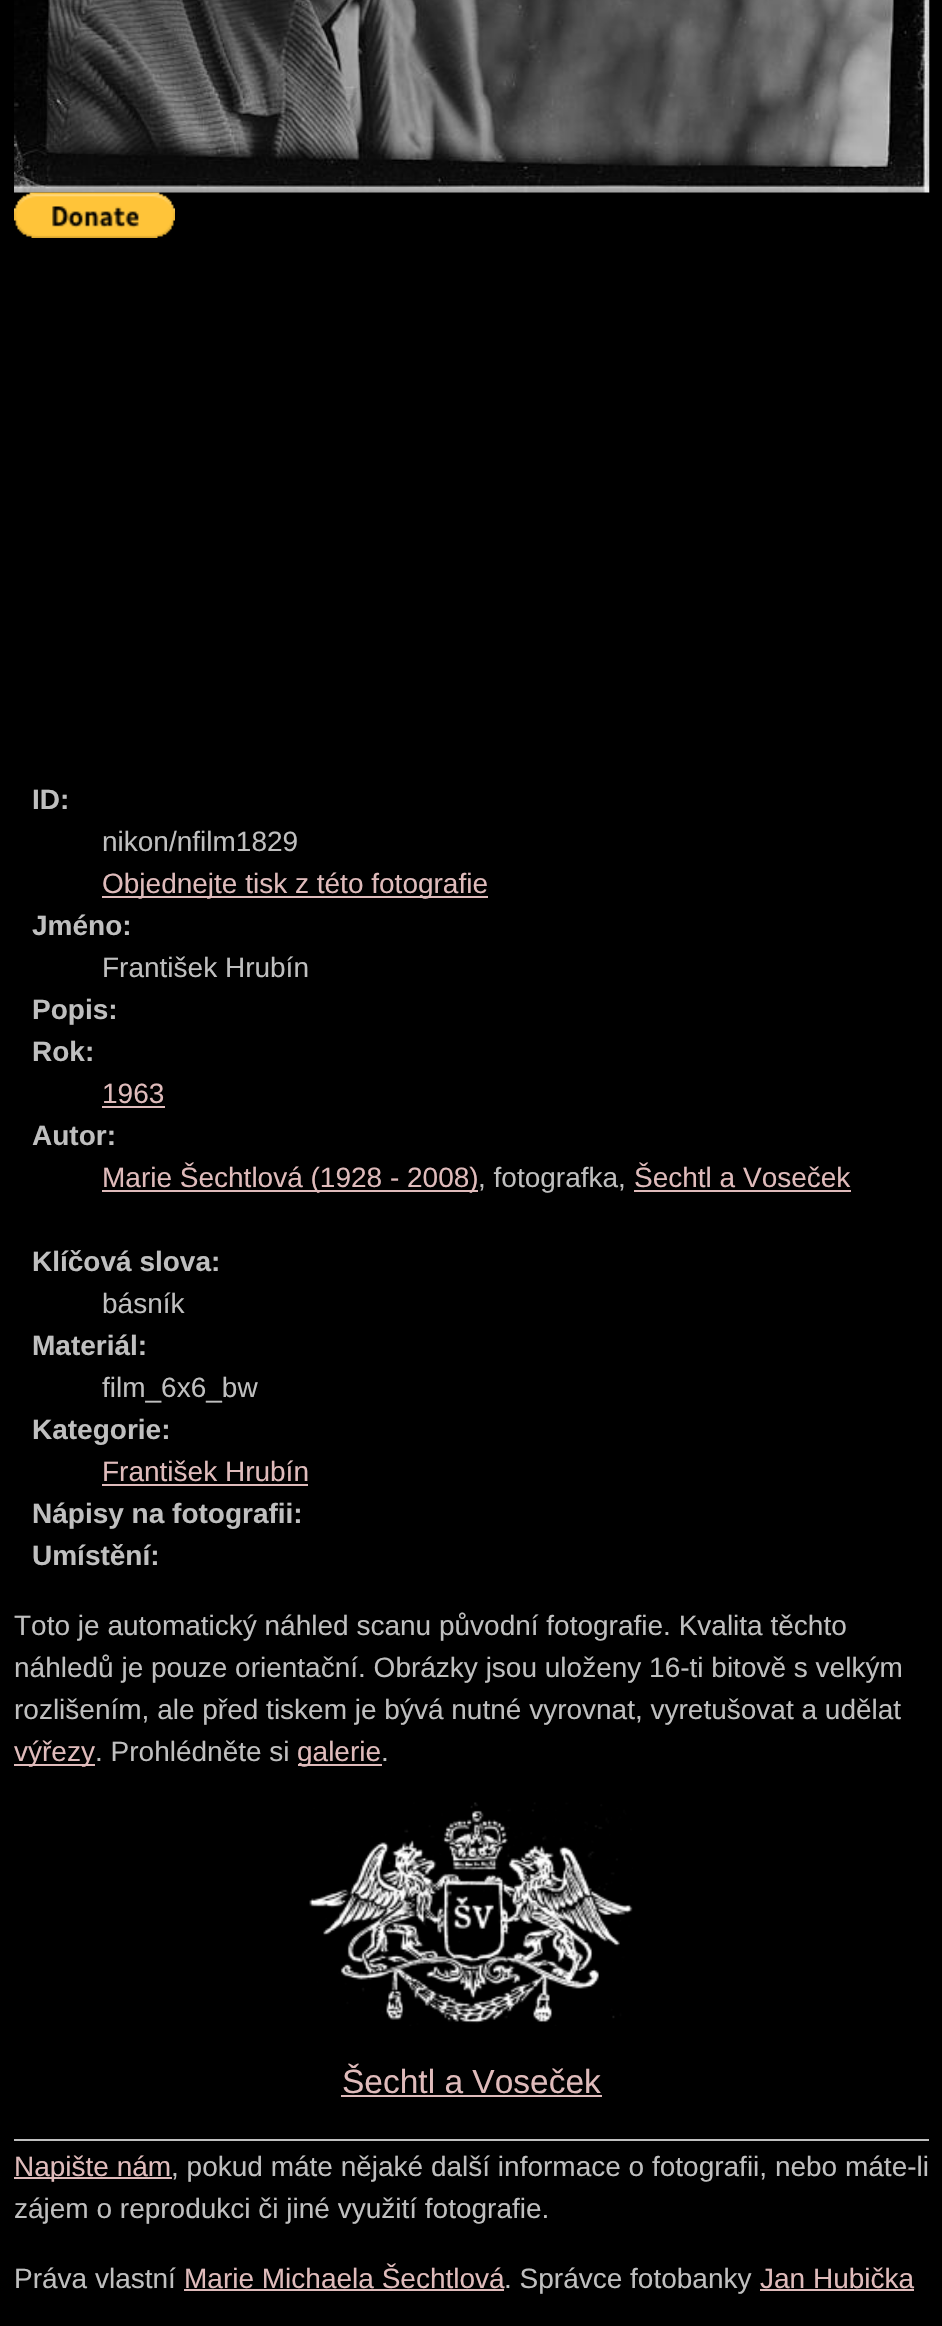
void draw(SkCanvas* canvas) {
    SkPaint paint;
    paint.setAntiAlias(true);
    canvas->clear(0xFF000000);
    canvas->drawImageRect(SkImages::DeferredFromEncodedData(SkData::MakeFromFileName("img1.png")), SkRect::MakeXYWH(14, 0, 916, 193), SkSamplingOptions());
    canvas->drawImageRect(SkImages::DeferredFromEncodedData(SkData::MakeFromFileName("img2.png")), SkRect::MakeXYWH(14, 192, 161, 46), SkSamplingOptions());
    SkFont font1(fontMgr->matchFamilyStyle("Liberation Sans", SkFontStyle::Bold()), 28);
    font1.setSubpixel(true);
    paint.setColor(0xFFBFBFBF);
    canvas->drawString("ID:", 32, 809, font1, paint);
    SkFont font2(fontMgr->matchFamilyStyle("Liberation Sans", SkFontStyle::Normal()), 28);
    font2.setSubpixel(true);
    canvas->drawString("nikon/nfilm1829", 102, 851, font2, paint);
    paint.setColor(0xFFDFBBBB);
    canvas->drawRect(SkRect::MakeXYWH(102, 896, 386, 2), paint);
    canvas->drawString("Objednejte tisk z této fotografie", 102, 893, font2, paint);
    paint.setColor(0xFFBFBFBF);
    canvas->drawString("Jméno:", 32, 935, font1, paint);
    canvas->drawString("František Hrubín", 102, 977, font2, paint);
    canvas->drawString("Popis:", 32, 1019, font1, paint);
    canvas->drawString("Rok:", 32, 1061, font1, paint);
    paint.setColor(0xFFDFBBBB);
    canvas->drawString("1963", 102, 1103, font2, paint);
    canvas->drawRect(SkRect::MakeXYWH(102, 1106, 63, 2), paint);
    paint.setColor(0xFFBFBFBF);
    canvas->drawString("Autor:", 32, 1145, font1, paint);
    paint.setColor(0xFFDFBBBB);
    canvas->drawRect(SkRect::MakeXYWH(102, 1190, 376, 2), paint);
    canvas->drawString("Marie Šechtlová (1928 - 2008)", 102, 1187, font2, paint);
    paint.setColor(0xFFBFBFBF);
    canvas->drawString(", fotografka,", 478, 1187, font2, paint);
    paint.setColor(0xFFDFBBBB);
    canvas->drawString("Šechtl a Voseček", 634, 1187, font2, paint);
    canvas->drawRect(SkRect::MakeXYWH(634, 1190, 217, 2), paint);
    paint.setColor(0xFFBFBFBF);
    canvas->drawString("Klíčová slova:", 32, 1271, font1, paint);
    canvas->drawString("básník", 102, 1313, font2, paint);
    canvas->drawString("Materiál:", 32, 1355, font1, paint);
    canvas->drawString("film_6x6_bw", 102, 1397, font2, paint);
    canvas->drawString("Kategorie:", 32, 1439, font1, paint);
    paint.setColor(0xFFDFBBBB);
    canvas->drawString("František Hrubín", 102, 1481, font2, paint);
    canvas->drawRect(SkRect::MakeXYWH(102, 1484, 206, 2), paint);
    paint.setColor(0xFFBFBFBF);
    canvas->drawString("Nápisy na fotografii:", 32, 1523, font1, paint);
    canvas->drawString("Umístění:", 32, 1565, font1, paint);
    canvas->drawString("Toto je automatický náhled scanu původní fotografie. Kvalita těchto", 14, 1635, font2, paint);
    canvas->drawString("náhledů je pouze orientační. Obrázky jsou uloženy 16-ti bitově s velkým", 14, 1677, font2, paint);
    canvas->drawString("rozlišením, ale před tiskem je bývá nutné vyrovnat, vyretušovat a udělat", 14, 1719, font2, paint);
    paint.setColor(0xFFDFBBBB);
    canvas->drawRect(SkRect::MakeXYWH(14, 1764, 81, 2), paint);
    canvas->drawString("výřezy", 14, 1761, font2, paint);
    paint.setColor(0xFFBFBFBF);
    canvas->drawString(". Prohlédněte si", 95, 1761, font2, paint);
    paint.setColor(0xFFDFBBBB);
    canvas->drawRect(SkRect::MakeXYWH(298, 1764, 84, 2), paint);
    canvas->drawString("galerie", 297, 1761, font2, paint);
    paint.setColor(0xFFBFBFBF);
    canvas->drawString(".", 381, 1761, font2, paint);
    canvas->drawImageRect(SkImages::DeferredFromEncodedData(SkData::MakeFromFileName("img3.png")), SkRect::MakeXYWH(309, 1802, 324, 224), SkSamplingOptions());
    SkFont font3(fontMgr->matchFamilyStyle("Liberation Sans", SkFontStyle::Normal()), 33.5f);
    font3.setSubpixel(true);
    paint.setColor(0xFFDFBBBB);
    canvas->drawString("Šechtl a Voseček", 342, 2093, font3, paint);
    canvas->drawRect(SkRect::MakeXYWH(341, 2095, 261, 2), paint);
    paint.setColor(0xFFBFBFBF);
    canvas->drawRect(SkRect::MakeXYWH(14, 2139, 915, 2), paint);
    paint.setColor(0xFFDFBBBB);
    canvas->drawRect(SkRect::MakeXYWH(14, 2177, 158, 2), paint);
    canvas->drawString("Napište nám", 14, 2176, font2, paint);
    paint.setColor(0xFFBFBFBF);
    canvas->drawString(", pokud máte nějaké další informace o fotografii, nebo máte-li", 171, 2176, font2, paint);
    canvas->drawString("zájem o reprodukci či jiné využití fotografie.", 14, 2218, font2, paint);
    canvas->drawString("Práva vlastní", 14, 2288, font2, paint);
    paint.setColor(0xFFDFBBBB);
    canvas->drawString("Marie Michaela Šechtlová", 184, 2288, font2, paint);
    canvas->drawRect(SkRect::MakeXYWH(184, 2289, 320, 2), paint);
    paint.setColor(0xFFBFBFBF);
    canvas->drawString(". Správce fotobanky", 504, 2288, font2, paint);
    paint.setColor(0xFFDFBBBB);
    canvas->drawString("Jan Hubička", 760, 2288, font2, paint);
    canvas->drawRect(SkRect::MakeXYWH(760, 2289, 154, 2), paint);
}
